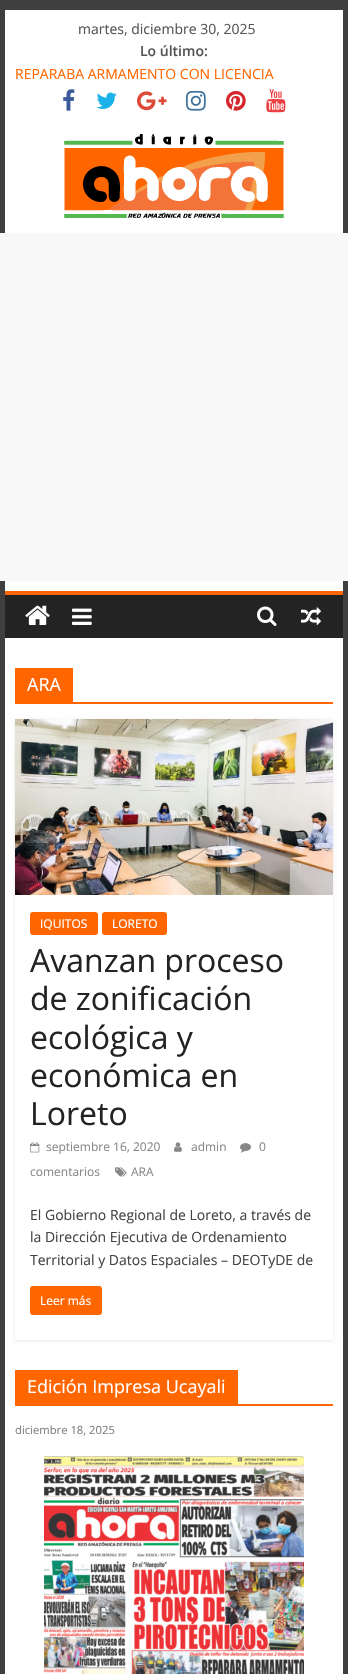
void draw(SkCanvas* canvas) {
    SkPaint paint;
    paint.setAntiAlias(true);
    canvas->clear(0xFF3F3F3F);
    paint.setColor(0xFFFFFFFF);
    canvas->drawRect(SkRect::MakeXYWH(5, 10, 338, 581), paint);
    SkFont font1(fontMgr->matchFamilyStyle("Open Sans", SkFontStyle::Normal()), 14);
    font1.setSubpixel(true);
    paint.setColor(0xFF555555);
    canvas->drawString("martes, diciembre 30, 2025", 78, 34, font1, paint);
    SkFont font2(fontMgr->matchFamilyStyle("Open Sans", SkFontStyle(600, SkFontStyle::kNormal_Width, SkFontStyle::kUpright_Slant)), 14);
    font2.setSubpixel(true);
    canvas->drawString("Lo último:", 140, 56, font2, paint);
    paint.setColor(0xFFFF6600);
    canvas->drawString("REPARABA ARMAMENTO CON LICENCIA", 15, 79, font1, paint);
    canvas->drawImageRect(SkImages::DeferredFromEncodedData(SkData::MakeFromFileName("img1.png")), SkRect::MakeXYWH(63, 89, 12, 22), SkSamplingOptions());
    canvas->drawImageRect(SkImages::DeferredFromEncodedData(SkData::MakeFromFileName("img2.png")), SkRect::MakeXYWH(96, 92, 21, 17), SkSamplingOptions());
    canvas->drawImageRect(SkImages::DeferredFromEncodedData(SkData::MakeFromFileName("img3.png")), SkRect::MakeXYWH(137, 91, 30, 20), SkSamplingOptions());
    canvas->drawImageRect(SkImages::DeferredFromEncodedData(SkData::MakeFromFileName("img4.png")), SkRect::MakeXYWH(186, 90, 20, 21), SkSamplingOptions());
    canvas->drawImageRect(SkImages::DeferredFromEncodedData(SkData::MakeFromFileName("img5.png")), SkRect::MakeXYWH(226, 90, 20, 21), SkSamplingOptions());
    canvas->drawImageRect(SkImages::DeferredFromEncodedData(SkData::MakeFromFileName("img6.png")), SkRect::MakeXYWH(266, 89, 20, 24), SkSamplingOptions());
    canvas->drawImageRect(SkImages::DeferredFromEncodedData(SkData::MakeFromFileName("img7.png")), SkRect::MakeXYWH(64, 134, 220, 84), SkSamplingOptions());
    paint.setColor(0xFFF8F8F8);
    canvas->drawRect(SkRect::MakeXYWH(0, 233, 348, 348), paint);
    paint.setColor(0xFF232323);
    canvas->drawRect(SkRect::MakeXYWH(5, 595, 338, 43), paint);
    paint.setColor(0xFFFF6600);
    canvas->drawRect(SkRect::MakeXYWH(5, 591, 338, 4), paint);
    canvas->drawImageRect(SkImages::DeferredFromEncodedData(SkData::MakeFromFileName("img8.png")), SkRect::MakeXYWH(25, 605, 25, 20), SkSamplingOptions());
    canvas->drawImageRect(SkImages::DeferredFromEncodedData(SkData::MakeFromFileName("img9.png")), SkRect::MakeXYWH(72, 608, 20, 17), SkSamplingOptions());
    canvas->drawImageRect(SkImages::DeferredFromEncodedData(SkData::MakeFromFileName("img10.png")), SkRect::MakeXYWH(257, 606, 20, 20), SkSamplingOptions());
    canvas->drawImageRect(SkImages::DeferredFromEncodedData(SkData::MakeFromFileName("img11.png")), SkRect::MakeXYWH(301, 607, 20, 18), SkSamplingOptions());
    paint.setColor(0xFFFFFFFF);
    canvas->drawRect(SkRect::MakeXYWH(5, 638, 338, 1036), paint);
    paint.setColor(0xFFFF6600);
    canvas->drawRect(SkRect::MakeXYWH(15, 702, 318, 2), paint);
    canvas->drawRect(SkRect::MakeXYWH(15, 668, 58, 34), paint);
    SkFont font3(fontMgr->matchFamilyStyle("Open Sans", SkFontStyle::Normal()), 18);
    font3.setSubpixel(true);
    paint.setColor(0xFFFFFFFF);
    canvas->drawString("ARA", 27, 691, font3, paint);
    canvas->save();
    canvas->clipPath(SkPathBuilder(SkPathFillType::kEvenOdd).moveTo(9, 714).lineTo(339, 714).lineTo(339, 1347).lineTo(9, 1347).close().moveTo(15, 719).lineTo(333, 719).lineTo(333, 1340).lineTo(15, 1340).close().detach(), true);
    paint.setColor(0x1A000000);
    paint.setMaskFilter(SkMaskFilter::MakeBlur(kNormal_SkBlurStyle, 1.5f));
    canvas->drawRect(SkRect::MakeXYWH(15, 720, 318, 621), paint);
    paint.setMaskFilter(nullptr);
    canvas->restore();
    canvas->drawImageRect(SkImages::DeferredFromEncodedData(SkData::MakeFromFileName("img12.png")), SkRect::MakeXYWH(15, 719, 318, 176), SkSamplingOptions());
    paint.setColor(0xFFFF6600);
    canvas->drawRoundRect(SkRect::MakeXYWH(30, 912, 68, 23), 3, 3, paint);
    SkFont font4(fontMgr->matchFamilyStyle("Open Sans", SkFontStyle::Normal()), 12);
    font4.setSubpixel(true);
    paint.setColor(0xFFFFFFFF);
    canvas->drawString("IQUITOS", 40, 928, font4, paint);
    paint.setColor(0xFFFF6600);
    canvas->drawRoundRect(SkRect::MakeXYWH(102, 912, 65, 23), 3, 3, paint);
    paint.setColor(0xFFFFFFFF);
    canvas->drawString("LORETO", 112, 928, font4, paint);
    SkFont font5(fontMgr->matchFamilyStyle("Open Sans", SkFontStyle::Normal()), 32);
    font5.setSubpixel(true);
    paint.setColor(0xFF232323);
    canvas->drawString("Avanzan proceso", 30, 972, font5, paint);
    canvas->drawString("de zonificación", 30, 1010, font5, paint);
    canvas->drawString("ecológica y", 30, 1049, font5, paint);
    canvas->drawString("económica en", 30, 1087, font5, paint);
    canvas->drawString("Loreto", 30, 1125, font5, paint);
    canvas->drawImageRect(SkImages::DeferredFromEncodedData(SkData::MakeFromFileName("img13.png")), SkRect::MakeXYWH(30, 1142, 10, 11), SkSamplingOptions());
    paint.setColor(0xFF888888);
    canvas->drawString("septiembre 16, 2020", 46, 1151, font4, paint);
    canvas->drawImageRect(SkImages::DeferredFromEncodedData(SkData::MakeFromFileName("img14.png")), SkRect::MakeXYWH(174, 1142, 8, 10), SkSamplingOptions());
    canvas->drawString("admin", 191, 1151, font4, paint);
    canvas->drawImageRect(SkImages::DeferredFromEncodedData(SkData::MakeFromFileName("img15.png")), SkRect::MakeXYWH(240, 1143, 11, 10), SkSamplingOptions());
    canvas->drawString("0", 259, 1151, font4, paint);
    canvas->drawString("comentarios", 30, 1176, font4, paint);
    canvas->drawImageRect(SkImages::DeferredFromEncodedData(SkData::MakeFromFileName("img16.png")), SkRect::MakeXYWH(115, 1167, 12, 10), SkSamplingOptions());
    canvas->drawString("ARA", 131, 1176, font4, paint);
    paint.setColor(0xFF444444);
    canvas->drawString("El Gobierno Regional de Loreto, a través de", 30, 1220, font1, paint);
    canvas->drawString("la Dirección Ejecutiva de Ordenamiento", 30, 1242, font1, paint);
    canvas->drawString("Territorial y Datos Espaciales – DEOTyDE de", 30, 1265, font1, paint);
    paint.setColor(0xFFFF6600);
    canvas->drawRoundRect(SkRect::MakeXYWH(30, 1286, 72, 29), 3, 3, paint);
    paint.setColor(0xFFFFFFFF);
    canvas->drawString("Leer más", 40, 1305, font4, paint);
    paint.setColor(0xFFFF6600);
    canvas->drawRect(SkRect::MakeXYWH(15, 1404, 318, 2), paint);
    canvas->drawRect(SkRect::MakeXYWH(15, 1370, 223, 34), paint);
    paint.setColor(0xFFFFFFFF);
    canvas->drawString("Edición Impresa Ucayali", 27, 1393, font3, paint);
    SkFont font6(fontMgr->matchFamilyStyle("Open Sans", SkFontStyle::Normal()), 11.25f);
    font6.setSubpixel(true);
    paint.setColor(0xFF808080);
    canvas->drawString("diciembre 18, 2025", 15, 1434, font6, paint);
    canvas->drawImageRect(SkImages::DeferredFromEncodedData(SkData::MakeFromFileName("img17.png")), SkRect::MakeXYWH(44, 1456, 260, 218), SkSamplingOptions());
}
